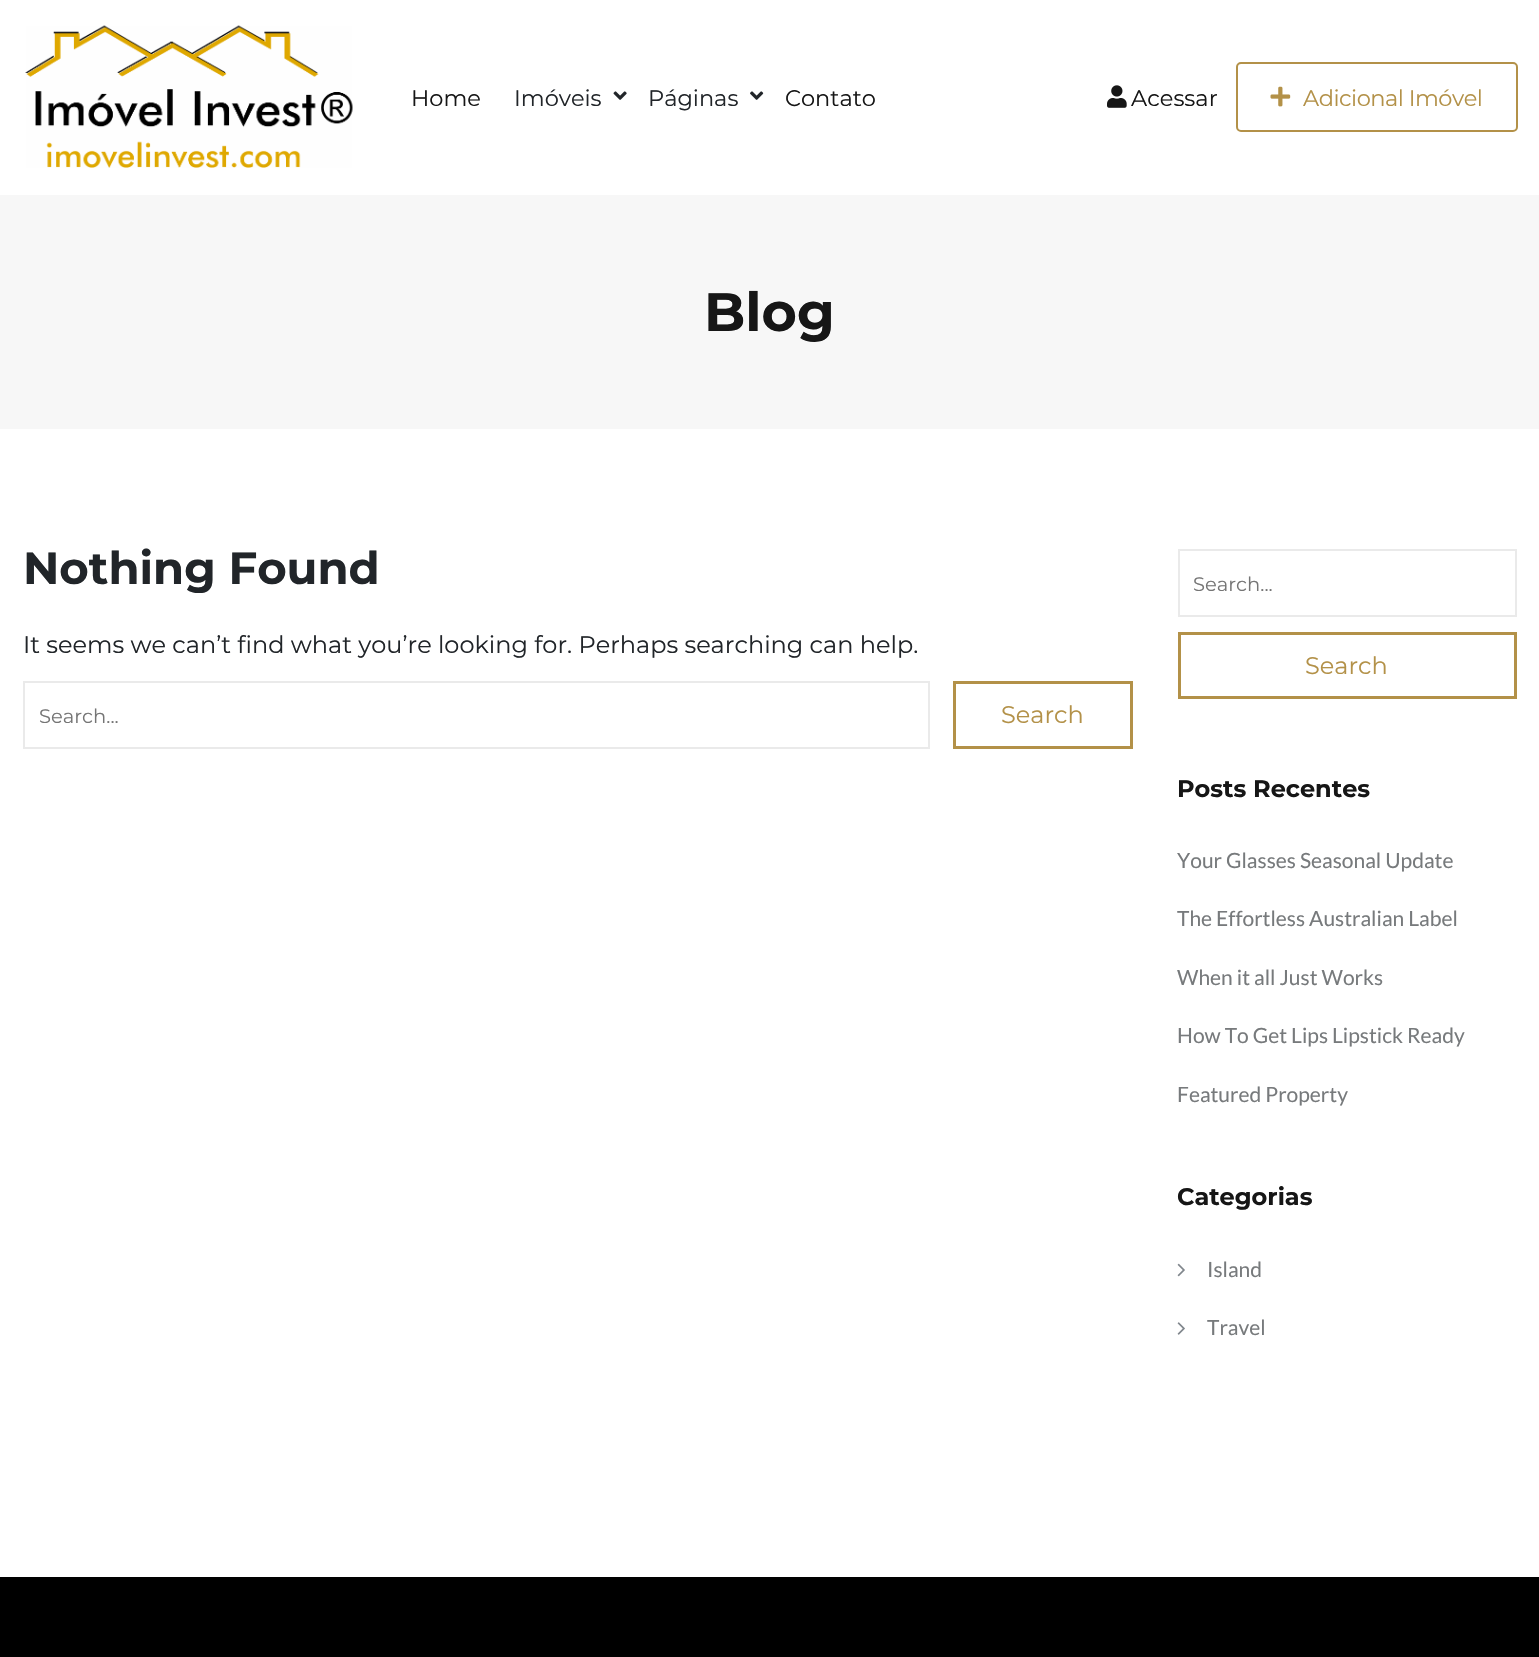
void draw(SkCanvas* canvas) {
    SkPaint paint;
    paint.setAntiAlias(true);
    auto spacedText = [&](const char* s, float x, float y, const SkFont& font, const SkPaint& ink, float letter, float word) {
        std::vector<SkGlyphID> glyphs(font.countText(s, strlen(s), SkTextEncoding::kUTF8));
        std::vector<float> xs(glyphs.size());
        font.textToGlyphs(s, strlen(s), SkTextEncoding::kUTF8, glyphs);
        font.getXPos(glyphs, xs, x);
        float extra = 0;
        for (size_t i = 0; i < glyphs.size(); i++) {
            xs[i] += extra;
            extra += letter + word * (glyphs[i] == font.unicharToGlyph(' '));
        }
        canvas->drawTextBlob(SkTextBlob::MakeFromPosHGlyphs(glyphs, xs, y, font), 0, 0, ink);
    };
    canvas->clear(0xFFFFFFFF);
    canvas->drawImageRect(SkImages::DeferredFromEncodedData(SkData::MakeFromFileName("img1.png")), SkRect::MakeXYWH(25, 25, 328, 143), SkSamplingOptions());
    SkFont font1(fontMgr->matchFamilyStyle("Montserrat", SkFontStyle::Normal()), 22.5f);
    font1.setSubpixel(true);
    paint.setColor(0xFF161616);
    canvas->drawString("Home", 411, 106, font1, paint);
    paint.setColor(0xFF212529);
    canvas->drawString("Imóveis", 514, 106, font1, paint);
    canvas->drawImageRect(SkImages::DeferredFromEncodedData(SkData::MakeFromFileName("img2.png")), SkRect::MakeXYWH(613, 91, 14, 9), SkSamplingOptions());
    canvas->drawString("Páginas", 648, 106, font1, paint);
    canvas->drawImageRect(SkImages::DeferredFromEncodedData(SkData::MakeFromFileName("img3.png")), SkRect::MakeXYWH(750, 91, 14, 9), SkSamplingOptions());
    paint.setColor(0xFF161616);
    canvas->drawString("Contato", 785, 106, font1, paint);
    canvas->drawImageRect(SkImages::DeferredFromEncodedData(SkData::MakeFromFileName("img4.png")), SkRect::MakeXYWH(1107, 85, 20, 23), SkSamplingOptions());
    canvas->drawString("Acessar", 1131, 106, font1, paint);
    paint.setStyle(SkPaint::kStroke_Style);
    paint.setStrokeWidth(2);
    paint.setColor(0xFFB39148);
    canvas->drawRoundRect(SkRect::MakeXYWH(1237, 63, 280, 68), 4, 4, paint);
    canvas->drawImageRect(SkImages::DeferredFromEncodedData(SkData::MakeFromFileName("img5.png")), SkRect::MakeXYWH(1270, 86, 21, 21), SkSamplingOptions());
    paint.setStyle(SkPaint::kFill_Style);
    spacedText("Adicional Imóvel", 1303, 106, font1, paint, -0.5f, 0);
    paint.setColor(0xFFF7F7F7);
    canvas->drawRect(SkRect::MakeXYWH(0, 195, 1539, 234), paint);
    SkFont font2(fontMgr->matchFamilyStyle("Montserrat", SkFontStyle::Bold()), 54);
    font2.setSubpixel(true);
    paint.setColor(0xFF161616);
    canvas->drawString("Blog", 704, 331, font2, paint);
    SkFont font3(fontMgr->matchFamilyStyle("Montserrat", SkFontStyle::Bold()), 45);
    font3.setSubpixel(true);
    paint.setColor(0xFF212529);
    canvas->drawString("Nothing Found", 23, 584, font3, paint);
    SkFont font4(fontMgr->matchFamilyStyle("Montserrat", SkFontStyle::Normal()), 24);
    font4.setSubpixel(true);
    canvas->drawString("It seems we can’t find what you’re looking for. Perhaps searching can help.", 23, 653, font4, paint);
    paint.setStyle(SkPaint::kStroke_Style);
    paint.setColor(0xFFEAEAEA);
    canvas->drawRect(SkRect::MakeXYWH(24, 682, 905, 66), paint);
    SkFont font5(fontMgr->matchFamilyStyle("Montserrat", SkFontStyle::Normal()), 19.5f);
    font5.setSubpixel(true);
    paint.setStyle(SkPaint::kFill_Style);
    paint.setColor(0xFF757575);
    canvas->drawString("Search...", 39, 723, font5, paint);
    paint.setStyle(SkPaint::kStroke_Style);
    paint.setStrokeWidth(3);
    paint.setColor(0xFFB39148);
    canvas->drawRect(SkRect::MakeXYWH(954.5f, 682.5f, 177, 65), paint);
    paint.setStyle(SkPaint::kFill_Style);
    canvas->drawString("Search", 1001, 723, font4, paint);
    paint.setStyle(SkPaint::kStroke_Style);
    paint.setStrokeWidth(2);
    paint.setColor(0xFFEAEAEA);
    canvas->drawRect(SkRect::MakeXYWH(1179, 550, 337, 66), paint);
    paint.setStyle(SkPaint::kFill_Style);
    paint.setColor(0xFF757575);
    canvas->drawString("Search...", 1193, 591, font5, paint);
    paint.setStyle(SkPaint::kStroke_Style);
    paint.setStrokeWidth(3);
    paint.setColor(0xFFB39148);
    canvas->drawRect(SkRect::MakeXYWH(1179.5f, 633.5f, 336, 64), paint);
    paint.setStyle(SkPaint::kFill_Style);
    canvas->drawString("Search", 1305, 674, font4, paint);
    SkFont font6(fontMgr->matchFamilyStyle("Montserrat", SkFontStyle::Bold()), 24);
    font6.setSubpixel(true);
    paint.setColor(0xFF161616);
    canvas->drawString("Posts Recentes", 1177, 797, font6, paint);
    SkFont font7(fontMgr->matchFamilyStyle("Lato", SkFontStyle::Normal()), 21);
    font7.setSubpixel(true);
    paint.setColor(0xFF777A7C);
    canvas->drawString("Your Glasses Seasonal Update", 1177, 868, font7, paint);
    canvas->drawString("The Effortless Australian Label", 1177, 926, font7, paint);
    canvas->drawString("When it all Just Works", 1177, 985, font7, paint);
    canvas->drawString("How To Get Lips Lipstick Ready", 1177, 1043, font7, paint);
    canvas->drawString("Featured Property", 1177, 1102, font7, paint);
    paint.setColor(0xFF161616);
    canvas->drawString("Categorias", 1177, 1205, font6, paint);
    canvas->drawImageRect(SkImages::DeferredFromEncodedData(SkData::MakeFromFileName("img6.png")), SkRect::MakeXYWH(1177, 1263, 8, 14), SkSamplingOptions());
    paint.setColor(0xFF777A7C);
    canvas->drawString("Island", 1207, 1277, font7, paint);
    canvas->drawImageRect(SkImages::DeferredFromEncodedData(SkData::MakeFromFileName("img7.png")), SkRect::MakeXYWH(1177, 1322, 8, 13), SkSamplingOptions());
    canvas->drawString("Travel", 1207, 1335, font7, paint);
    paint.setColor(0xFF000000);
    canvas->drawRect(SkRect::MakeXYWH(0, 1577, 1539, 80), paint);
}
